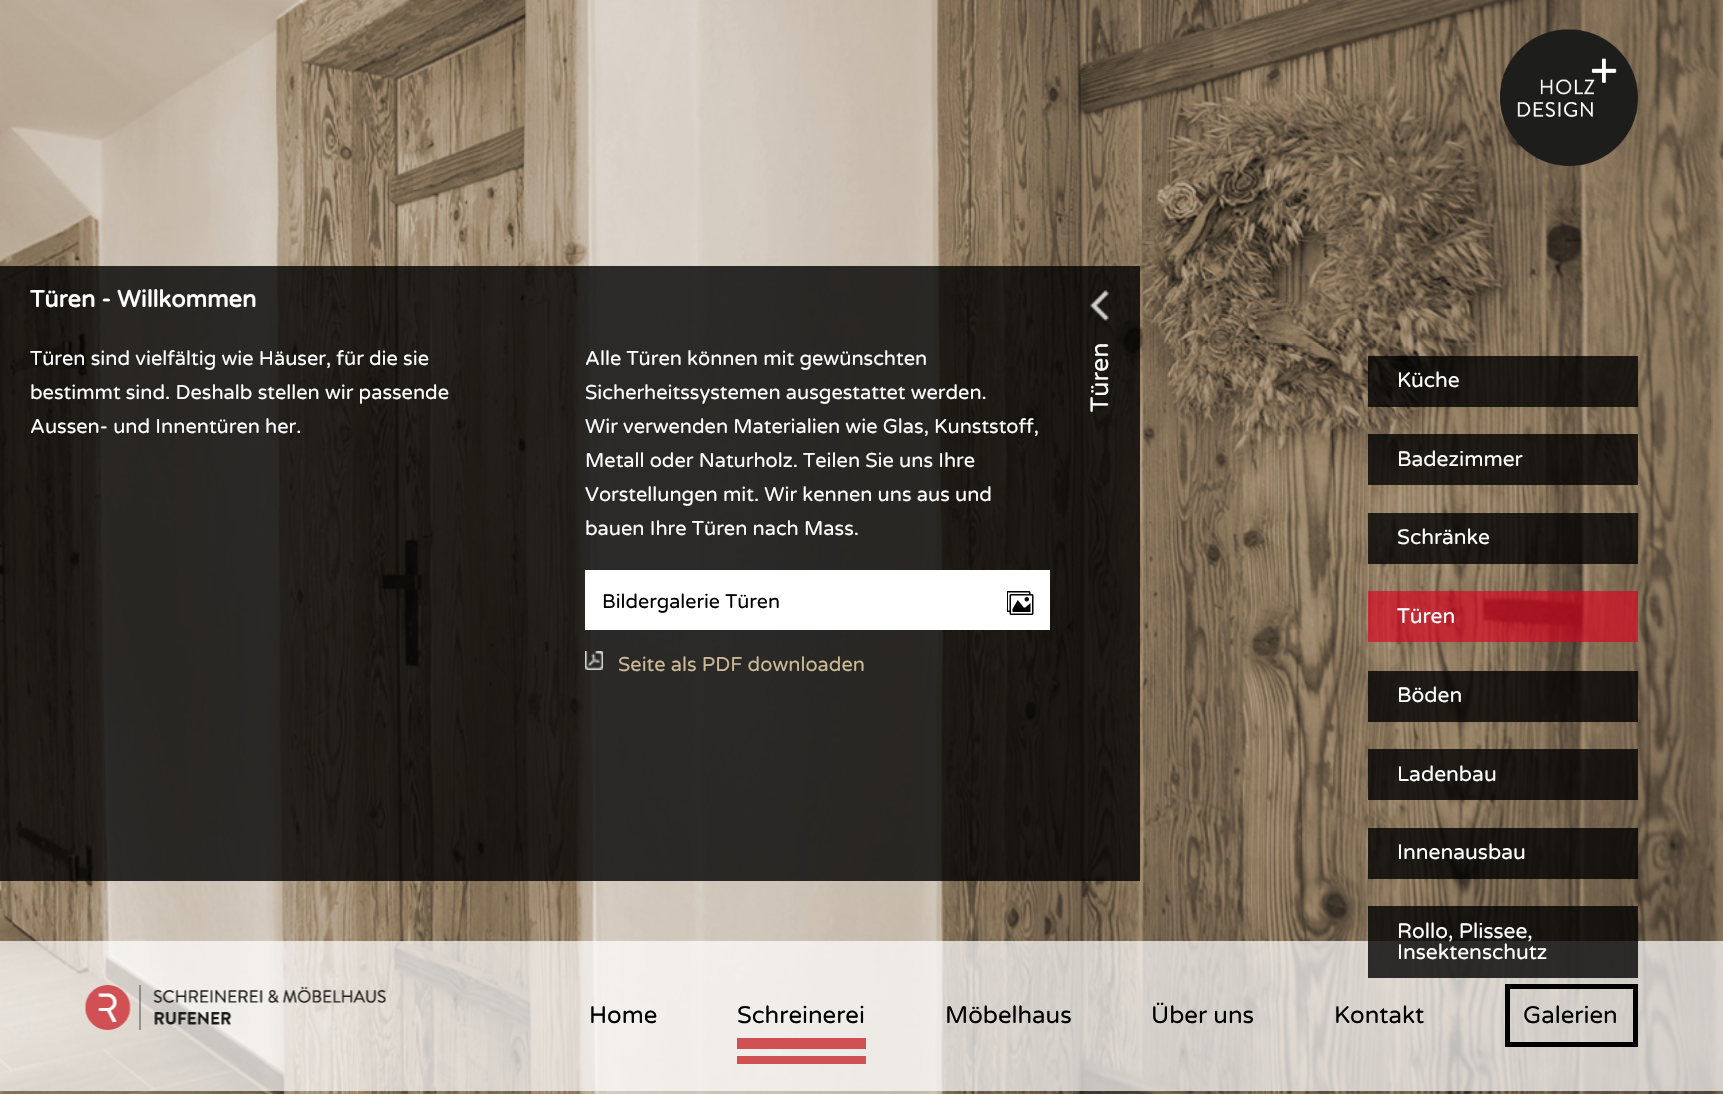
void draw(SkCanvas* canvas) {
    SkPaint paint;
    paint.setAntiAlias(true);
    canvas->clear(0xFFFFFFFF);
    canvas->drawImageRect(SkImages::DeferredFromEncodedData(SkData::MakeFromFileName("img1.png")), SkRect::MakeXYWH(0, 0, 1723, 1094), SkSamplingOptions());
    canvas->drawImageRect(SkImages::DeferredFromEncodedData(SkData::MakeFromFileName("img2.png")), SkRect::MakeXYWH(1500, 29, 138, 137), SkSamplingOptions());
    paint.setColor(0xB3FFFFFF);
    canvas->drawRect(SkRect::MakeXYWH(0, 941, 1723, 150), paint);
    paint.setColor(0xCC000000);
    canvas->drawRect(SkRect::MakeXYWH(0, 266, 1140, 615), paint);
    SkFont font1(fontMgr->matchFamilyStyle("Varela Round", SkFontStyle::Bold()), 23.5f);
    font1.setSubpixel(true);
    paint.setColor(0xFFFFFFFF);
    canvas->drawString("Türen - Willkommen", 30, 307, font1, paint);
    SkFont font2(fontMgr->matchFamilyStyle("Varela Round", SkFontStyle::Normal()), 20);
    font2.setSubpixel(true);
    canvas->drawString("Türen sind vielfältig wie Häuser, für die sie", 30, 365, font2, paint);
    canvas->drawString("bestimmt sind. Deshalb stellen wir passende", 30, 399, font2, paint);
    canvas->drawString("Aussen- und Innentüren her.", 30, 433, font2, paint);
    canvas->drawString("Alle Türen können mit gewünschten", 585, 365, font2, paint);
    canvas->drawString("Sicherheitssystemen ausgestattet werden.", 585, 399, font2, paint);
    canvas->drawString("Wir verwenden Materialien wie Glas, Kunststoff,", 585, 433, font2, paint);
    canvas->drawString("Metall oder Naturholz. Teilen Sie uns Ihre", 585, 467, font2, paint);
    canvas->drawString("Vorstellungen mit. Wir kennen uns aus und", 585, 501, font2, paint);
    canvas->drawString("bauen Ihre Türen nach Mass.", 585, 535, font2, paint);
    canvas->drawImageRect(SkImages::DeferredFromEncodedData(SkData::MakeFromFileName("img3.png")), SkRect::MakeXYWH(1090, 290, 19, 31), SkSamplingOptions());
    SkFont font3(fontMgr->matchFamilyStyle("Varela Round", SkFontStyle::Normal()), 25);
    font3.setSubpixel(true);
    canvas->save();
    canvas->rotate(-90, 1108, 412);
    canvas->drawString("Türen", 1108, 412, font3, paint);
    canvas->restore();
    canvas->drawRect(SkRect::MakeXYWH(585, 570, 465, 60), paint);
    SkFont font4(fontMgr->matchFamilyStyle("Varela Round", SkFontStyle::Normal()), 19.75f);
    font4.setSubpixel(true);
    paint.setColor(0xFF000000);
    canvas->drawString("Bildergalerie Türen", 602, 608, font4, paint);
    canvas->drawImageRect(SkImages::DeferredFromEncodedData(SkData::MakeFromFileName("img4.png")), SkRect::MakeXYWH(1007, 591, 27, 24), SkSamplingOptions());
    canvas->drawImageRect(SkImages::DeferredFromEncodedData(SkData::MakeFromFileName("img5.png")), SkRect::MakeXYWH(585, 651, 18, 19), SkSamplingOptions());
    paint.setColor(0xFFCCBC96);
    canvas->drawString("Seite als PDF downloaden", 618, 671, font2, paint);
    paint.setColor(0xCC000000);
    canvas->drawRect(SkRect::MakeXYWH(1368, 356, 270, 51), paint);
    SkFont font5(fontMgr->matchFamilyStyle("Varela Round", SkFontStyle::Normal()), 21);
    font5.setSubpixel(true);
    paint.setColor(0xFFFFFFFF);
    canvas->drawString("Küche", 1397, 387, font5, paint);
    paint.setColor(0xCC000000);
    canvas->drawRect(SkRect::MakeXYWH(1368, 434, 270, 51), paint);
    paint.setColor(0xFFFFFFFF);
    canvas->drawString("Badezimmer", 1397, 466, font5, paint);
    paint.setColor(0xCC000000);
    canvas->drawRect(SkRect::MakeXYWH(1368, 513, 270, 51), paint);
    paint.setColor(0xFFFFFFFF);
    canvas->drawString("Schränke", 1397, 544, font5, paint);
    paint.setColor(0xA6DC001B);
    canvas->drawRect(SkRect::MakeXYWH(1368, 591, 270, 51), paint);
    paint.setColor(0xFFFFFFFF);
    canvas->drawString("Türen", 1397, 623, font5, paint);
    paint.setColor(0xCC000000);
    canvas->drawRect(SkRect::MakeXYWH(1368, 671, 270, 51), paint);
    paint.setColor(0xFFFFFFFF);
    canvas->drawString("Böden", 1397, 702, font5, paint);
    paint.setColor(0xCC000000);
    canvas->drawRect(SkRect::MakeXYWH(1368, 749, 270, 51), paint);
    paint.setColor(0xFFFFFFFF);
    canvas->drawString("Ladenbau", 1397, 781, font5, paint);
    paint.setColor(0xCC000000);
    canvas->drawRect(SkRect::MakeXYWH(1368, 828, 270, 51), paint);
    paint.setColor(0xFFFFFFFF);
    canvas->drawString("Innenausbau", 1397, 859, font5, paint);
    paint.setColor(0xCC000000);
    canvas->drawRect(SkRect::MakeXYWH(1368, 906, 270, 72), paint);
    paint.setColor(0xFFFFFFFF);
    canvas->drawString("Rollo, Plissee,", 1397, 938, font5, paint);
    canvas->drawString("Insektenschutz", 1397, 959, font5, paint);
    canvas->drawImageRect(SkImages::DeferredFromEncodedData(SkData::MakeFromFileName("img6.png")), SkRect::MakeXYWH(85, 985, 301, 45), SkSamplingOptions());
    SkFont font6(fontMgr->matchFamilyStyle("Varela Round", SkFontStyle::Normal()), 24);
    font6.setSubpixel(true);
    paint.setColor(0xFF000000);
    canvas->drawString("Home", 589, 1023, font6, paint);
    paint.setColor(0xFFD15054);
    canvas->drawRect(SkRect::MakeXYWH(737, 1038, 129, 11), paint);
    paint.setColor(0xFF000000);
    canvas->drawString("Schreinerei", 737, 1023, font6, paint);
    paint.setColor(0xFFD15054);
    canvas->drawRect(SkRect::MakeXYWH(737, 1056, 129, 8), paint);
    paint.setColor(0xFF000000);
    canvas->drawString("Möbelhaus", 945, 1023, font6, paint);
    canvas->drawString("Über uns", 1151, 1023, font6, paint);
    canvas->drawString("Kontakt", 1334, 1023, font6, paint);
    paint.setStyle(SkPaint::kStroke_Style);
    paint.setStrokeWidth(5);
    canvas->drawRect(SkRect::MakeXYWH(1507.5f, 986.5f, 128, 58), paint);
    paint.setStyle(SkPaint::kFill_Style);
    canvas->drawString("Galerien", 1523, 1023, font6, paint);
}
